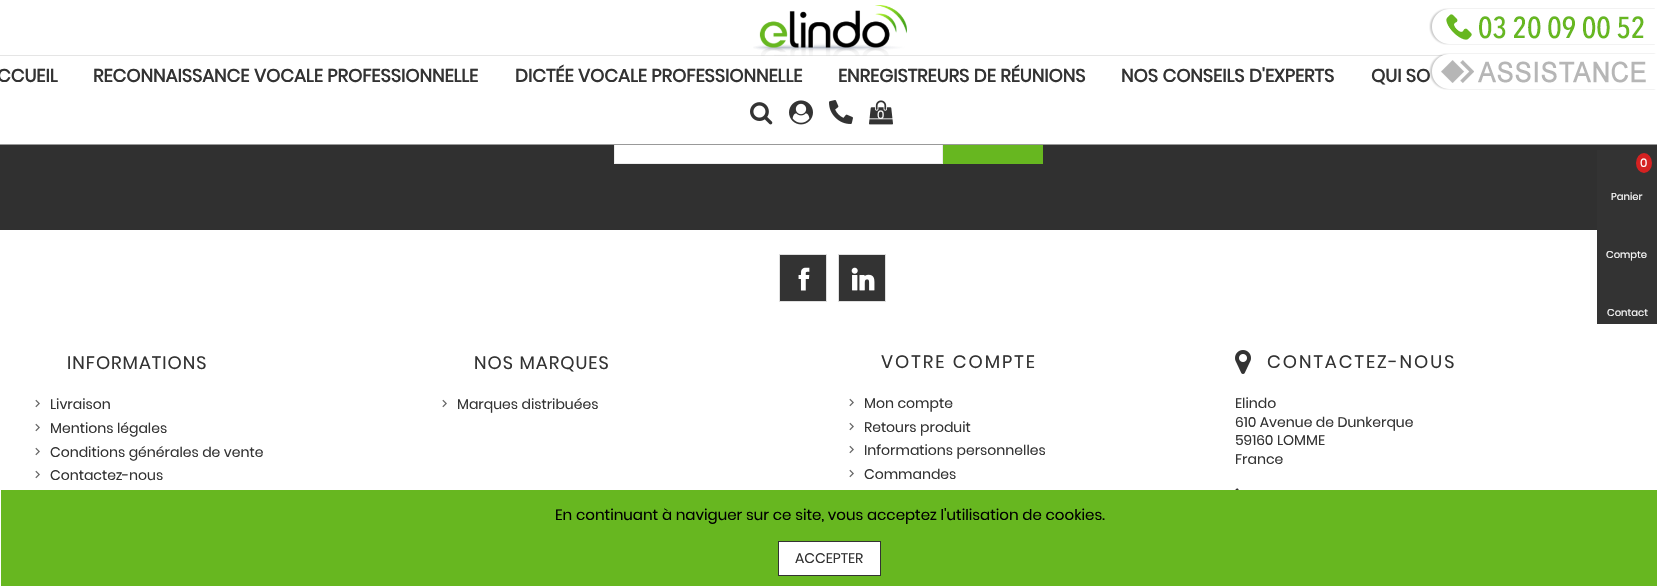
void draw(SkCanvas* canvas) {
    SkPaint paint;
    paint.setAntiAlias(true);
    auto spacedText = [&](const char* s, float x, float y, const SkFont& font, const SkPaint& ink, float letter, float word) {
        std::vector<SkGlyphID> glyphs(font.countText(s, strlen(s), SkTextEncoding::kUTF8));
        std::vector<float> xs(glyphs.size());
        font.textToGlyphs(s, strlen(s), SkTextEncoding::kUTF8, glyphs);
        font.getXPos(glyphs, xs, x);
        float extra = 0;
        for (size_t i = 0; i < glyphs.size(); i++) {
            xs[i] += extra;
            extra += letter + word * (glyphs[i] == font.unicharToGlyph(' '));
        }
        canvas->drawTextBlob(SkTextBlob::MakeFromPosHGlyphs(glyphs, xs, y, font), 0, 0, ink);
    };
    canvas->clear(0xFFFFFFFF);
    paint.setColor(0xFF303030);
    canvas->drawRect(SkRect::MakeXYWH(0, 145, 1657, 85), paint);
    paint.setColor(0xFFFFFFFF);
    canvas->drawRect(SkRect::MakeXYWH(615, 145, 327, 18), paint);
    paint.setStyle(SkPaint::kStroke_Style);
    paint.setStrokeWidth(1);
    paint.setColor(0xFFECECEC);
    canvas->drawRect(SkRect::MakeXYWH(614.5f, 122.5f, 328, 41), paint);
    paint.setStyle(SkPaint::kFill_Style);
    paint.setColor(0xFFFFFFFF);
    canvas->drawRect(SkRect::MakeXYWH(614, 122, 329, 22), paint);
    paint.setColor(0xFF999999);
    canvas->drawRect(SkRect::MakeXYWH(0, 144, 1657, 1), paint);
    paint.setColor(0xFFE5E5E5);
    canvas->drawRect(SkRect::MakeXYWH(0, 55, 1444, 1), paint);
    canvas->drawImageRect(SkImages::DeferredFromEncodedData(SkData::MakeFromFileName("img1.png")), SkRect::MakeXYWH(753, 5, 154, 51), SkSamplingOptions());
    SkFont font1(fontMgr->matchFamilyStyle("Poppins", SkFontStyle::Bold()), 18);
    font1.setSubpixel(true);
    paint.setColor(0xFF333333);
    canvas->drawString("CCUEIL", -3, 82, font1, paint);
    canvas->drawString("RECONNAISSANCE VOCALE PROFESSIONNELLE", 93, 82, font1, paint);
    canvas->drawString("DICTÉE VOCALE PROFESSIONNELLE", 515, 82, font1, paint);
    canvas->drawString("ENREGISTREURS DE RÉUNIONS", 838, 82, font1, paint);
    canvas->drawString("NOS CONSEILS D'EXPERTS", 1121, 82, font1, paint);
    canvas->drawString("QUI SO", 1371, 82, font1, paint);
    canvas->drawImageRect(SkImages::DeferredFromEncodedData(SkData::MakeFromFileName("img2.png")), SkRect::MakeXYWH(1429, 8, 226, 37), SkSamplingOptions());
    canvas->drawImageRect(SkImages::DeferredFromEncodedData(SkData::MakeFromFileName("img3.png")), SkRect::MakeXYWH(1429, 53, 228, 37), SkSamplingOptions());
    canvas->drawImageRect(SkImages::DeferredFromEncodedData(SkData::MakeFromFileName("img4.png")), SkRect::MakeXYWH(750, 102, 23, 23), SkSamplingOptions());
    canvas->drawImageRect(SkImages::DeferredFromEncodedData(SkData::MakeFromFileName("img5.png")), SkRect::MakeXYWH(789, 100, 24, 25), SkSamplingOptions());
    canvas->drawImageRect(SkImages::DeferredFromEncodedData(SkData::MakeFromFileName("img6.png")), SkRect::MakeXYWH(829, 100, 24, 24), SkSamplingOptions());
    canvas->drawImageRect(SkImages::DeferredFromEncodedData(SkData::MakeFromFileName("img7.png")), SkRect::MakeXYWH(869, 100, 24, 25), SkSamplingOptions());
    SkFont font2(fontMgr->matchFamilyStyle("Poppins", SkFontStyle::Normal()), 12);
    font2.setSubpixel(true);
    paint.setColor(0xFFFFFFFF);
    canvas->drawString("0", 877, 119, font2, paint);
    paint.setColor(0xFF333333);
    canvas->drawRect(SkRect::MakeXYWH(1597, 150, 60, 174), paint);
    paint.setColor(0xFFD52121);
    canvas->drawOval(SkRect::MakeXYWH(1636, 153, 16, 20), paint);
    paint.setColor(0xFFFFFFFF);
    canvas->drawString("0", 1640, 167, font2, paint);
    SkFont font3(fontMgr->matchFamilyStyle("Poppins", SkFontStyle::Normal()), 10);
    font3.setSubpixel(true);
    canvas->drawString("Panier", 1611, 200, font3, paint);
    canvas->drawString("Compte", 1606, 258, font3, paint);
    canvas->drawString("Contact", 1607, 316, font3, paint);
    paint.setColor(0xFF67B720);
    canvas->drawRect(SkRect::MakeXYWH(943, 145, 100, 19), paint);
    paint.setColor(0xFF333333);
    canvas->drawRect(SkRect::MakeXYWH(780, 255, 46, 46), paint);
    canvas->drawImageRect(SkImages::DeferredFromEncodedData(SkData::MakeFromFileName("img8.png")), SkRect::MakeXYWH(798, 267, 12, 24), SkSamplingOptions());
    paint.setStyle(SkPaint::kStroke_Style);
    paint.setColor(0xFFDFDFDF);
    canvas->drawRect(SkRect::MakeXYWH(779.5f, 254.5f, 47, 47), paint);
    paint.setStyle(SkPaint::kFill_Style);
    paint.setColor(0xFF333333);
    canvas->drawRect(SkRect::MakeXYWH(839, 255, 46, 46), paint);
    canvas->drawImageRect(SkImages::DeferredFromEncodedData(SkData::MakeFromFileName("img9.png")), SkRect::MakeXYWH(851, 267, 24, 24), SkSamplingOptions());
    paint.setStyle(SkPaint::kStroke_Style);
    paint.setColor(0xFFDFDFDF);
    canvas->drawRect(SkRect::MakeXYWH(838.5f, 254.5f, 47, 47), paint);
    SkFont font4(fontMgr->matchFamilyStyle("Poppins", SkFontStyle::Normal()), 18);
    font4.setSubpixel(true);
    paint.setStyle(SkPaint::kFill_Style);
    paint.setColor(0xFF333333);
    spacedText("INFORMATIONS", 67, 369, font4, paint, 1, 0);
    canvas->drawImageRect(SkImages::DeferredFromEncodedData(SkData::MakeFromFileName("img10.png")), SkRect::MakeXYWH(35, 399, 5, 9), SkSamplingOptions());
    SkFont font5(fontMgr->matchFamilyStyle("Poppins", SkFontStyle::Normal()), 14);
    font5.setSubpixel(true);
    canvas->drawString("Livraison", 50, 409, font5, paint);
    canvas->drawImageRect(SkImages::DeferredFromEncodedData(SkData::MakeFromFileName("img10.png")), SkRect::MakeXYWH(35, 423, 5, 9), SkSamplingOptions());
    canvas->drawString("Mentions légales", 50, 433, font5, paint);
    canvas->drawImageRect(SkImages::DeferredFromEncodedData(SkData::MakeFromFileName("img10.png")), SkRect::MakeXYWH(35, 447, 5, 9), SkSamplingOptions());
    canvas->drawString("Conditions générales de vente", 50, 457, font5, paint);
    canvas->drawImageRect(SkImages::DeferredFromEncodedData(SkData::MakeFromFileName("img10.png")), SkRect::MakeXYWH(35, 470, 5, 9), SkSamplingOptions());
    canvas->drawString("Contactez-nous", 50, 480, font5, paint);
    spacedText("NOS MARQUES", 474, 369, font4, paint, 1, 0);
    canvas->drawImageRect(SkImages::DeferredFromEncodedData(SkData::MakeFromFileName("img10.png")), SkRect::MakeXYWH(442, 399, 5, 9), SkSamplingOptions());
    canvas->drawString("Marques distribuées", 457, 409, font5, paint);
    spacedText("VOTRE COMPTE", 881, 368, font4, paint, 2, 0);
    canvas->drawImageRect(SkImages::DeferredFromEncodedData(SkData::MakeFromFileName("img10.png")), SkRect::MakeXYWH(849, 398, 5, 9), SkSamplingOptions());
    canvas->drawString("Mon compte", 864, 408, font5, paint);
    canvas->drawImageRect(SkImages::DeferredFromEncodedData(SkData::MakeFromFileName("img10.png")), SkRect::MakeXYWH(849, 422, 5, 9), SkSamplingOptions());
    canvas->drawString("Retours produit", 864, 432, font5, paint);
    canvas->drawImageRect(SkImages::DeferredFromEncodedData(SkData::MakeFromFileName("img10.png")), SkRect::MakeXYWH(849, 445, 5, 9), SkSamplingOptions());
    canvas->drawString("Informations personnelles", 864, 455, font5, paint);
    canvas->drawImageRect(SkImages::DeferredFromEncodedData(SkData::MakeFromFileName("img10.png")), SkRect::MakeXYWH(849, 469, 5, 9), SkSamplingOptions());
    canvas->drawString("Commandes", 864, 479, font5, paint);
    canvas->drawImageRect(SkImages::DeferredFromEncodedData(SkData::MakeFromFileName("img11.png")), SkRect::MakeXYWH(1235, 350, 16, 24), SkSamplingOptions());
    spacedText("CONTACTEZ-NOUS", 1267, 368, font4, paint, 2, 0);
    canvas->drawString("Elindo", 1235, 408, font5, paint);
    canvas->drawString("610 Avenue de Dunkerque", 1235, 427, font5, paint);
    canvas->drawString("59160 LOMME", 1235, 445, font5, paint);
    canvas->drawString("France", 1235, 464, font5, paint);
    canvas->drawImageRect(SkImages::DeferredFromEncodedData(SkData::MakeFromFileName("img12.png")), SkRect::MakeXYWH(1235, 488, 4, 2), SkSamplingOptions());
    paint.setColor(0xFF67B720);
    canvas->drawRect(SkRect::MakeXYWH(1, 490, 1656, 96), paint);
    SkFont font6(fontMgr->matchFamilyStyle("Poppins", SkFontStyle::Normal()), 15);
    font6.setSubpixel(true);
    paint.setColor(0xFF000000);
    canvas->drawString("En continuant à naviguer sur ce site, vous acceptez l'utilisation de cookies.", 555, 520, font6, paint);
    paint.setColor(0xFFFFFFFF);
    canvas->drawRect(SkRect::MakeXYWH(778.5f, 541.5f, 102, 34), paint);
    paint.setStyle(SkPaint::kStroke_Style);
    paint.setColor(0xFF333333);
    canvas->drawRect(SkRect::MakeXYWH(778.5f, 541.5f, 102, 34), paint);
    paint.setStyle(SkPaint::kFill_Style);
    canvas->drawString("ACCEPTER", 795, 563, font5, paint);
}
